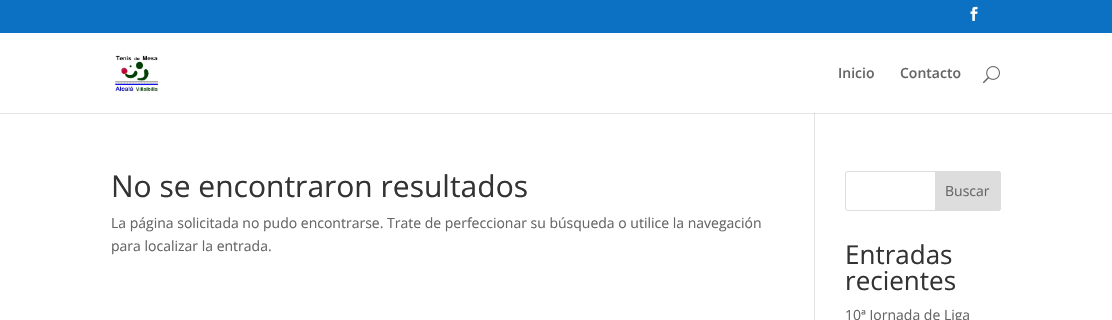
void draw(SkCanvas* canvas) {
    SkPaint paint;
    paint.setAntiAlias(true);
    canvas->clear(0xFF0C71C3);
    canvas->drawImageRect(SkImages::DeferredFromEncodedData(SkData::MakeFromFileName("img1.png")), SkRect::MakeXYWH(970, 6, 8, 15), SkSamplingOptions());
    paint.setColor(0xFFFFFFFF);
    canvas->drawRect(SkRect::MakeXYWH(0, 33, 1112, 80), paint);
    canvas->drawImageRect(SkImages::DeferredFromEncodedData(SkData::MakeFromFileName("img2.png")), SkRect::MakeXYWH(115, 55, 43, 37), SkSamplingOptions());
    SkFont font1(fontMgr->matchFamilyStyle("Open Sans", SkFontStyle(600, SkFontStyle::kNormal_Width, SkFontStyle::kUpright_Slant)), 14);
    font1.setSubpixel(true);
    paint.setColor(0xFF666666);
    canvas->drawString("Inicio", 838, 78, font1, paint);
    canvas->drawString("Contacto", 900, 78, font1, paint);
    canvas->drawImageRect(SkImages::DeferredFromEncodedData(SkData::MakeFromFileName("img3.png")), SkRect::MakeXYWH(983, 66, 17, 18), SkSamplingOptions());
    paint.setColor(0xFFFFFFFF);
    canvas->drawRect(SkRect::MakeXYWH(0, 114, 1112, 206), paint);
    paint.setColor(0xFFE6E6E6);
    canvas->drawRect(SkRect::MakeXYWH(0, 113, 1112, 1), paint);
    paint.setColor(0xFFE2E2E2);
    canvas->drawRect(SkRect::MakeXYWH(814, 113, 1, 207), paint);
    paint.setColor(0xFFCBCBCB);
    canvas->drawRect(SkRect::MakeXYWH(814, 113, 1, 1), paint);
    SkFont font2(fontMgr->matchFamilyStyle("Open Sans", SkFontStyle::Normal()), 30);
    font2.setSubpixel(true);
    paint.setColor(0xFF333333);
    canvas->drawString("No se encontraron resultados", 111, 197, font2, paint);
    SkFont font3(fontMgr->matchFamilyStyle("Open Sans", SkFontStyle::Normal()), 14);
    font3.setSubpixel(true);
    paint.setColor(0xFF666666);
    canvas->drawString("La página solicitada no pudo encontrarse. Trate de perfeccionar su búsqueda o utilice la navegación", 111, 228, font3, paint);
    canvas->drawString("para localizar la entrada.", 111, 251, font3, paint);
    paint.setStyle(SkPaint::kStroke_Style);
    paint.setStrokeWidth(1);
    paint.setColor(0xFFDDDDDD);
    canvas->drawRoundRect(SkRect::MakeXYWH(845.5f, 171.5f, 155, 39), 2.5f, 2.5f, paint);
    paint.setStyle(SkPaint::kFill_Style);
    canvas->drawPath(SkPathBuilder().moveTo(935.5f, 171.5f).lineTo(998, 171.5f).cubicTo(999.5f, 171.5f, 1000.5f, 172.5f, 1000.5f, 174).lineTo(1000.5f, 208).cubicTo(1000.5f, 209.5f, 999.5f, 210.5f, 998, 210.5f).lineTo(935.5f, 210.5f).close().detach(), paint);
    paint.setStyle(SkPaint::kStroke_Style);
    canvas->drawPath(SkPathBuilder().moveTo(935.5f, 171.5f).lineTo(998, 171.5f).cubicTo(999.5f, 171.5f, 1000.5f, 172.5f, 1000.5f, 174).lineTo(1000.5f, 208).cubicTo(1000.5f, 209.5f, 999.5f, 210.5f, 998, 210.5f).lineTo(935.5f, 210.5f).close().detach(), paint);
    paint.setStyle(SkPaint::kFill_Style);
    paint.setColor(0xFF666666);
    canvas->drawString("Buscar", 945, 196, font3, paint);
    SkFont font4(fontMgr->matchFamilyStyle("Open Sans", SkFontStyle::Normal()), 26);
    font4.setSubpixel(true);
    paint.setColor(0xFF333333);
    canvas->drawString("Entradas", 845, 264, font4, paint);
    canvas->drawString("recientes", 845, 290, font4, paint);
    paint.setColor(0xFF666666);
    canvas->drawString("10ª Jornada de Liga", 845, 320, font3, paint);
}
